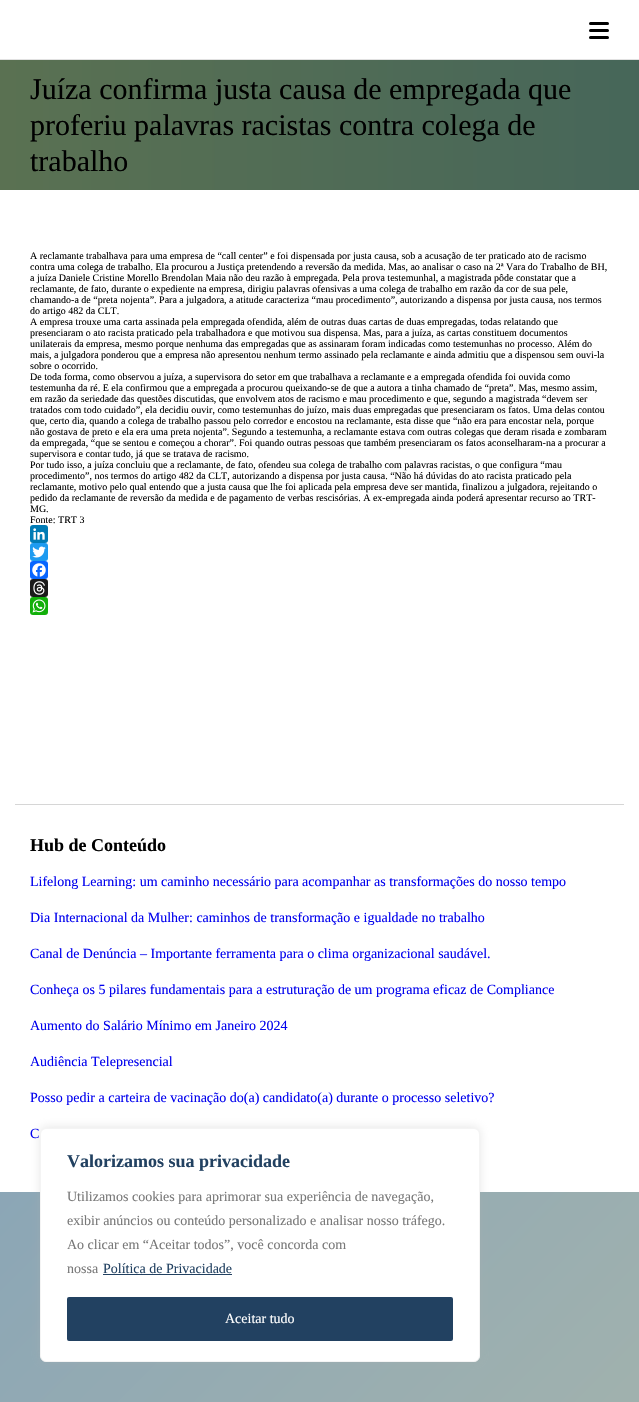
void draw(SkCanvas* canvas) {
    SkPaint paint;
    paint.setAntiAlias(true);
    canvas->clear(0xFFFFFFFF);
    paint.setColor(0xFFE1E1E1);
    canvas->drawRect(SkRect::MakeXYWH(0, 59, 639, 1), paint);
    paint.setColor(0xFF000000);
    canvas->drawRoundRect(SkRect::MakeXYWH(589, 22, 20, 3), 1.5f, 1.5f, paint);
    canvas->drawRoundRect(SkRect::MakeXYWH(589, 29, 20, 3), 1.5f, 1.5f, paint);
    canvas->drawRoundRect(SkRect::MakeXYWH(589, 36, 20, 3), 1.5f, 1.5f, paint);
    {
        const SkColor colors[] = {0xFF5A7152, 0xFF164C6C};
        const float stops[] = {0, 1};
        const SkPoint ends[] = {{0, 125}, {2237, 125}};
        paint.setShader(SkGradientShader::MakeLinear(ends, colors, stops, 2, SkTileMode::kClamp));
        paint.setAlpha(255);
    }
    canvas->drawRect(SkRect::MakeXYWH(0, 60, 639, 130), paint);
    SkFont font1(fontMgr->matchFamilyStyle("Liberation Serif", SkFontStyle::Normal()), 30);
    font1.setSubpixel(true);
    paint.setShader(nullptr);
    paint.setColor(0xFF000000);
    canvas->drawString("Juíza confirma justa causa de empregada que", 30, 99, font1, paint);
    canvas->drawString("proferiu palavras racistas contra colega de", 30, 135, font1, paint);
    canvas->drawString("trabalho", 30, 171, font1, paint);
    SkFont font2(fontMgr->matchFamilyStyle("Liberation Serif", SkFontStyle::Normal()), 10);
    font2.setSubpixel(true);
    canvas->drawString("A reclamante trabalhava para uma empresa de “call center” e foi dispensada por justa causa, sob a acusação de ter praticado ato de racismo", 30, 259, font2, paint);
    canvas->drawString("contra uma colega de trabalho. Ela procurou a Justiça pretendendo a reversão da medida. Mas, ao analisar o caso na 2ª Vara do Trabalho de BH,", 30, 270, font2, paint);
    canvas->drawString("a juíza Daniele Cristine Morello Brendolan Maia não deu razão à empregada. Pela prova testemunhal, a magistrada pôde constatar que a", 30, 281, font2, paint);
    canvas->drawString("reclamante, de fato, durante o expediente na empresa, dirigiu palavras ofensivas a uma colega de trabalho em razão da cor de sua pele,", 30, 292, font2, paint);
    canvas->drawString("chamando-a de “preta nojenta”. Para a julgadora, a atitude caracteriza “mau procedimento”, autorizando a dispensa por justa causa, nos termos", 30, 303, font2, paint);
    canvas->drawString("do artigo 482 da CLT.", 30, 314, font2, paint);
    canvas->drawString("A empresa trouxe uma carta assinada pela empregada ofendida, além de outras duas cartas de duas empregadas, todas relatando que", 30, 325, font2, paint);
    canvas->drawString("presenciaram o ato racista praticado pela trabalhadora e que motivou sua dispensa. Mas, para a juíza, as cartas constituem documentos", 30, 336, font2, paint);
    canvas->drawString("unilaterais da empresa, mesmo porque nenhuma das empregadas que as assinaram foram indicadas como testemunhas no processo. Além do", 30, 347, font2, paint);
    canvas->drawString("mais, a julgadora ponderou que a empresa não apresentou nenhum termo assinado pela reclamante e ainda admitiu que a dispensou sem ouvi-la", 30, 358, font2, paint);
    canvas->drawString("sobre o ocorrido.", 30, 369, font2, paint);
    canvas->drawString("De toda forma, como observou a juíza, a supervisora do setor em que trabalhava a reclamante e a empregada ofendida foi ouvida como", 30, 380, font2, paint);
    canvas->drawString("testemunha da ré. E ela confirmou que a empregada a procurou queixando-se de que a autora a tinha chamado de “preta”. Mas, mesmo assim,", 30, 391, font2, paint);
    canvas->drawString("em razão da seriedade das questões discutidas, que envolvem atos de racismo e mau procedimento e que, segundo a magistrada “devem ser", 30, 402, font2, paint);
    canvas->drawString("tratados com todo cuidado”, ela decidiu ouvir, como testemunhas do juízo, mais duas empregadas que presenciaram os fatos. Uma delas contou", 30, 413, font2, paint);
    canvas->drawString("que, certo dia, quando a colega de trabalho passou pelo corredor e encostou na reclamante, esta disse que “não era para encostar nela, porque", 30, 424, font2, paint);
    canvas->drawString("não gostava de preto e ela era uma preta nojenta”. Segundo a testemunha, a reclamante estava com outras colegas que deram risada e zombaram", 30, 435, font2, paint);
    canvas->drawString("da empregada, “que se sentou e começou a chorar”. Foi quando outras pessoas que também presenciaram os fatos aconselharam-na a procurar a", 30, 446, font2, paint);
    canvas->drawString("supervisora e contar tudo, já que se tratava de racismo.", 30, 457, font2, paint);
    canvas->drawString("Por tudo isso, a juíza concluiu que a reclamante, de fato, ofendeu sua colega de trabalho com palavras racistas, o que configura “mau", 30, 468, font2, paint);
    canvas->drawString("procedimento”, nos termos do artigo 482 da CLT, autorizando a dispensa por justa causa. “Não há dúvidas do ato racista praticado pela", 30, 479, font2, paint);
    canvas->drawString("reclamante, motivo pelo qual entendo que a justa causa que lhe foi aplicada pela empresa deve ser mantida, finalizou a julgadora, rejeitando o", 30, 490, font2, paint);
    canvas->drawString("pedido da reclamante de reversão da medida e de pagamento de verbas rescisórias. A ex-empregada ainda poderá apresentar recurso ao TRT-", 30, 501, font2, paint);
    canvas->drawString("MG.", 30, 512, font2, paint);
    canvas->drawString("Fonte: TRT 3", 30, 523, font2, paint);
    paint.setColor(0xFF007BB5);
    canvas->drawRoundRect(SkRect::MakeXYWH(30, 525, 18, 18), 3, 3, paint);
    canvas->drawImageRect(SkImages::DeferredFromEncodedData(SkData::MakeFromFileName("img1.png")), SkRect::MakeXYWH(33, 528, 12, 12), SkSamplingOptions());
    paint.setColor(0xFF1D9BF0);
    canvas->drawRoundRect(SkRect::MakeXYWH(30, 543, 18, 18), 3, 3, paint);
    canvas->drawImageRect(SkImages::DeferredFromEncodedData(SkData::MakeFromFileName("img2.png")), SkRect::MakeXYWH(32, 546, 14, 12), SkSamplingOptions());
    paint.setColor(0xFF0866FF);
    canvas->drawRoundRect(SkRect::MakeXYWH(30, 561, 18, 18), 3, 3, paint);
    canvas->drawImageRect(SkImages::DeferredFromEncodedData(SkData::MakeFromFileName("img3.png")), SkRect::MakeXYWH(32, 563, 14, 14), SkSamplingOptions());
    paint.setColor(0xFF1A1A1A);
    canvas->drawRoundRect(SkRect::MakeXYWH(30, 579, 18, 18), 3, 3, paint);
    canvas->drawImageRect(SkImages::DeferredFromEncodedData(SkData::MakeFromFileName("img4.png")), SkRect::MakeXYWH(33, 581, 12, 14), SkSamplingOptions());
    paint.setColor(0xFF12AF0A);
    canvas->drawRoundRect(SkRect::MakeXYWH(30, 597, 18, 18), 3, 3, paint);
    canvas->drawImageRect(SkImages::DeferredFromEncodedData(SkData::MakeFromFileName("img5.png")), SkRect::MakeXYWH(32, 599, 14, 14), SkSamplingOptions());
    paint.setColor(0xFFD6D6D6);
    canvas->drawRect(SkRect::MakeXYWH(15, 804, 609, 1), paint);
    SkFont font3(fontMgr->matchFamilyStyle("Liberation Serif", SkFontStyle::Bold()), 18);
    font3.setSubpixel(true);
    paint.setColor(0xFF000000);
    canvas->drawString("Hub de Conteúdo", 30, 851, font3, paint);
    SkFont font4(fontMgr->matchFamilyStyle("Liberation Serif", SkFontStyle::Normal()), 14);
    font4.setSubpixel(true);
    paint.setColor(0xFF0000EE);
    canvas->drawString("Lifelong Learning: um caminho necessário para acompanhar as transformações do nosso tempo", 30, 886, font4, paint);
    canvas->drawString("Dia Internacional da Mulher: caminhos de transformação e igualdade no trabalho", 30, 922, font4, paint);
    canvas->drawString("Canal de Denúncia – Importante ferramenta para o clima organizacional saudável.", 30, 958, font4, paint);
    canvas->drawString("Conheça os 5 pilares fundamentais para a estruturação de um programa eficaz de Compliance", 30, 994, font4, paint);
    canvas->drawString("Aumento do Salário Mínimo em Janeiro 2024", 30, 1030, font4, paint);
    canvas->drawString("Audiência Telepresencial", 30, 1066, font4, paint);
    canvas->drawString("Posso pedir a carteira de vacinação do(a) candidato(a) durante o processo seletivo?", 30, 1102, font4, paint);
    canvas->drawString("C", 30, 1138, font4, paint);
    {
        const SkColor colors[] = {0xFF8BA6B6, 0xFFADB8A9};
        const float stops[] = {0, 1};
        const SkPoint ends[] = {{-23, 1200}, {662, 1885}};
        paint.setShader(SkGradientShader::MakeLinear(ends, colors, stops, 2, SkTileMode::kClamp));
        paint.setAlpha(255);
    }
    canvas->drawRect(SkRect::MakeXYWH(0, 1192, 639, 210), paint);
    paint.setShader(nullptr);
    paint.setColor(0x4DACABAB);
    paint.setMaskFilter(SkMaskFilter::MakeBlur(kNormal_SkBlurStyle, 5));
    canvas->drawRoundRect(SkRect::MakeXYWH(40, 1127, 440, 234), 6, 6, paint);
    paint.setMaskFilter(nullptr);
    paint.setColor(0xFFFFFFFF);
    canvas->drawRoundRect(SkRect::MakeXYWH(40.5f, 1128.5f, 439, 233), 5.5f, 5.5f, paint);
    paint.setStyle(SkPaint::kStroke_Style);
    paint.setStrokeWidth(1);
    paint.setColor(0xFFF4F4F4);
    canvas->drawRoundRect(SkRect::MakeXYWH(40.5f, 1128.5f, 439, 233), 5.5f, 5.5f, paint);
    paint.setStyle(SkPaint::kFill_Style);
    paint.setColor(0xFF224161);
    canvas->drawString("Valorizamos sua privacidade", 67, 1167, font3, paint);
    paint.setColor(0xFF787878);
    canvas->drawString("Utilizamos cookies para aprimorar sua experiência de navegação,", 67, 1201, font4, paint);
    canvas->drawString("exibir anúncios ou conteúdo personalizado e analisar nosso tráfego.", 67, 1225, font4, paint);
    canvas->drawString("Ao clicar em “Aceitar todos”, você concorda com", 67, 1249, font4, paint);
    canvas->drawString("nossa", 67, 1273, font4, paint);
    paint.setColor(0xFF224161);
    canvas->drawString("Política de Privacidade", 103, 1273, font4, paint);
    canvas->drawRect(SkRect::MakeXYWH(103, 1274, 129, 1), paint);
    canvas->drawRoundRect(SkRect::MakeXYWH(68, 1298, 384, 42), 1, 1, paint);
    paint.setStyle(SkPaint::kStroke_Style);
    paint.setStrokeWidth(2);
    canvas->drawRoundRect(SkRect::MakeXYWH(68, 1298, 384, 42), 1, 1, paint);
    paint.setStyle(SkPaint::kFill_Style);
    paint.setColor(0xFFFFFFFF);
    canvas->drawString("Aceitar tudo", 225, 1323, font4, paint);
}
